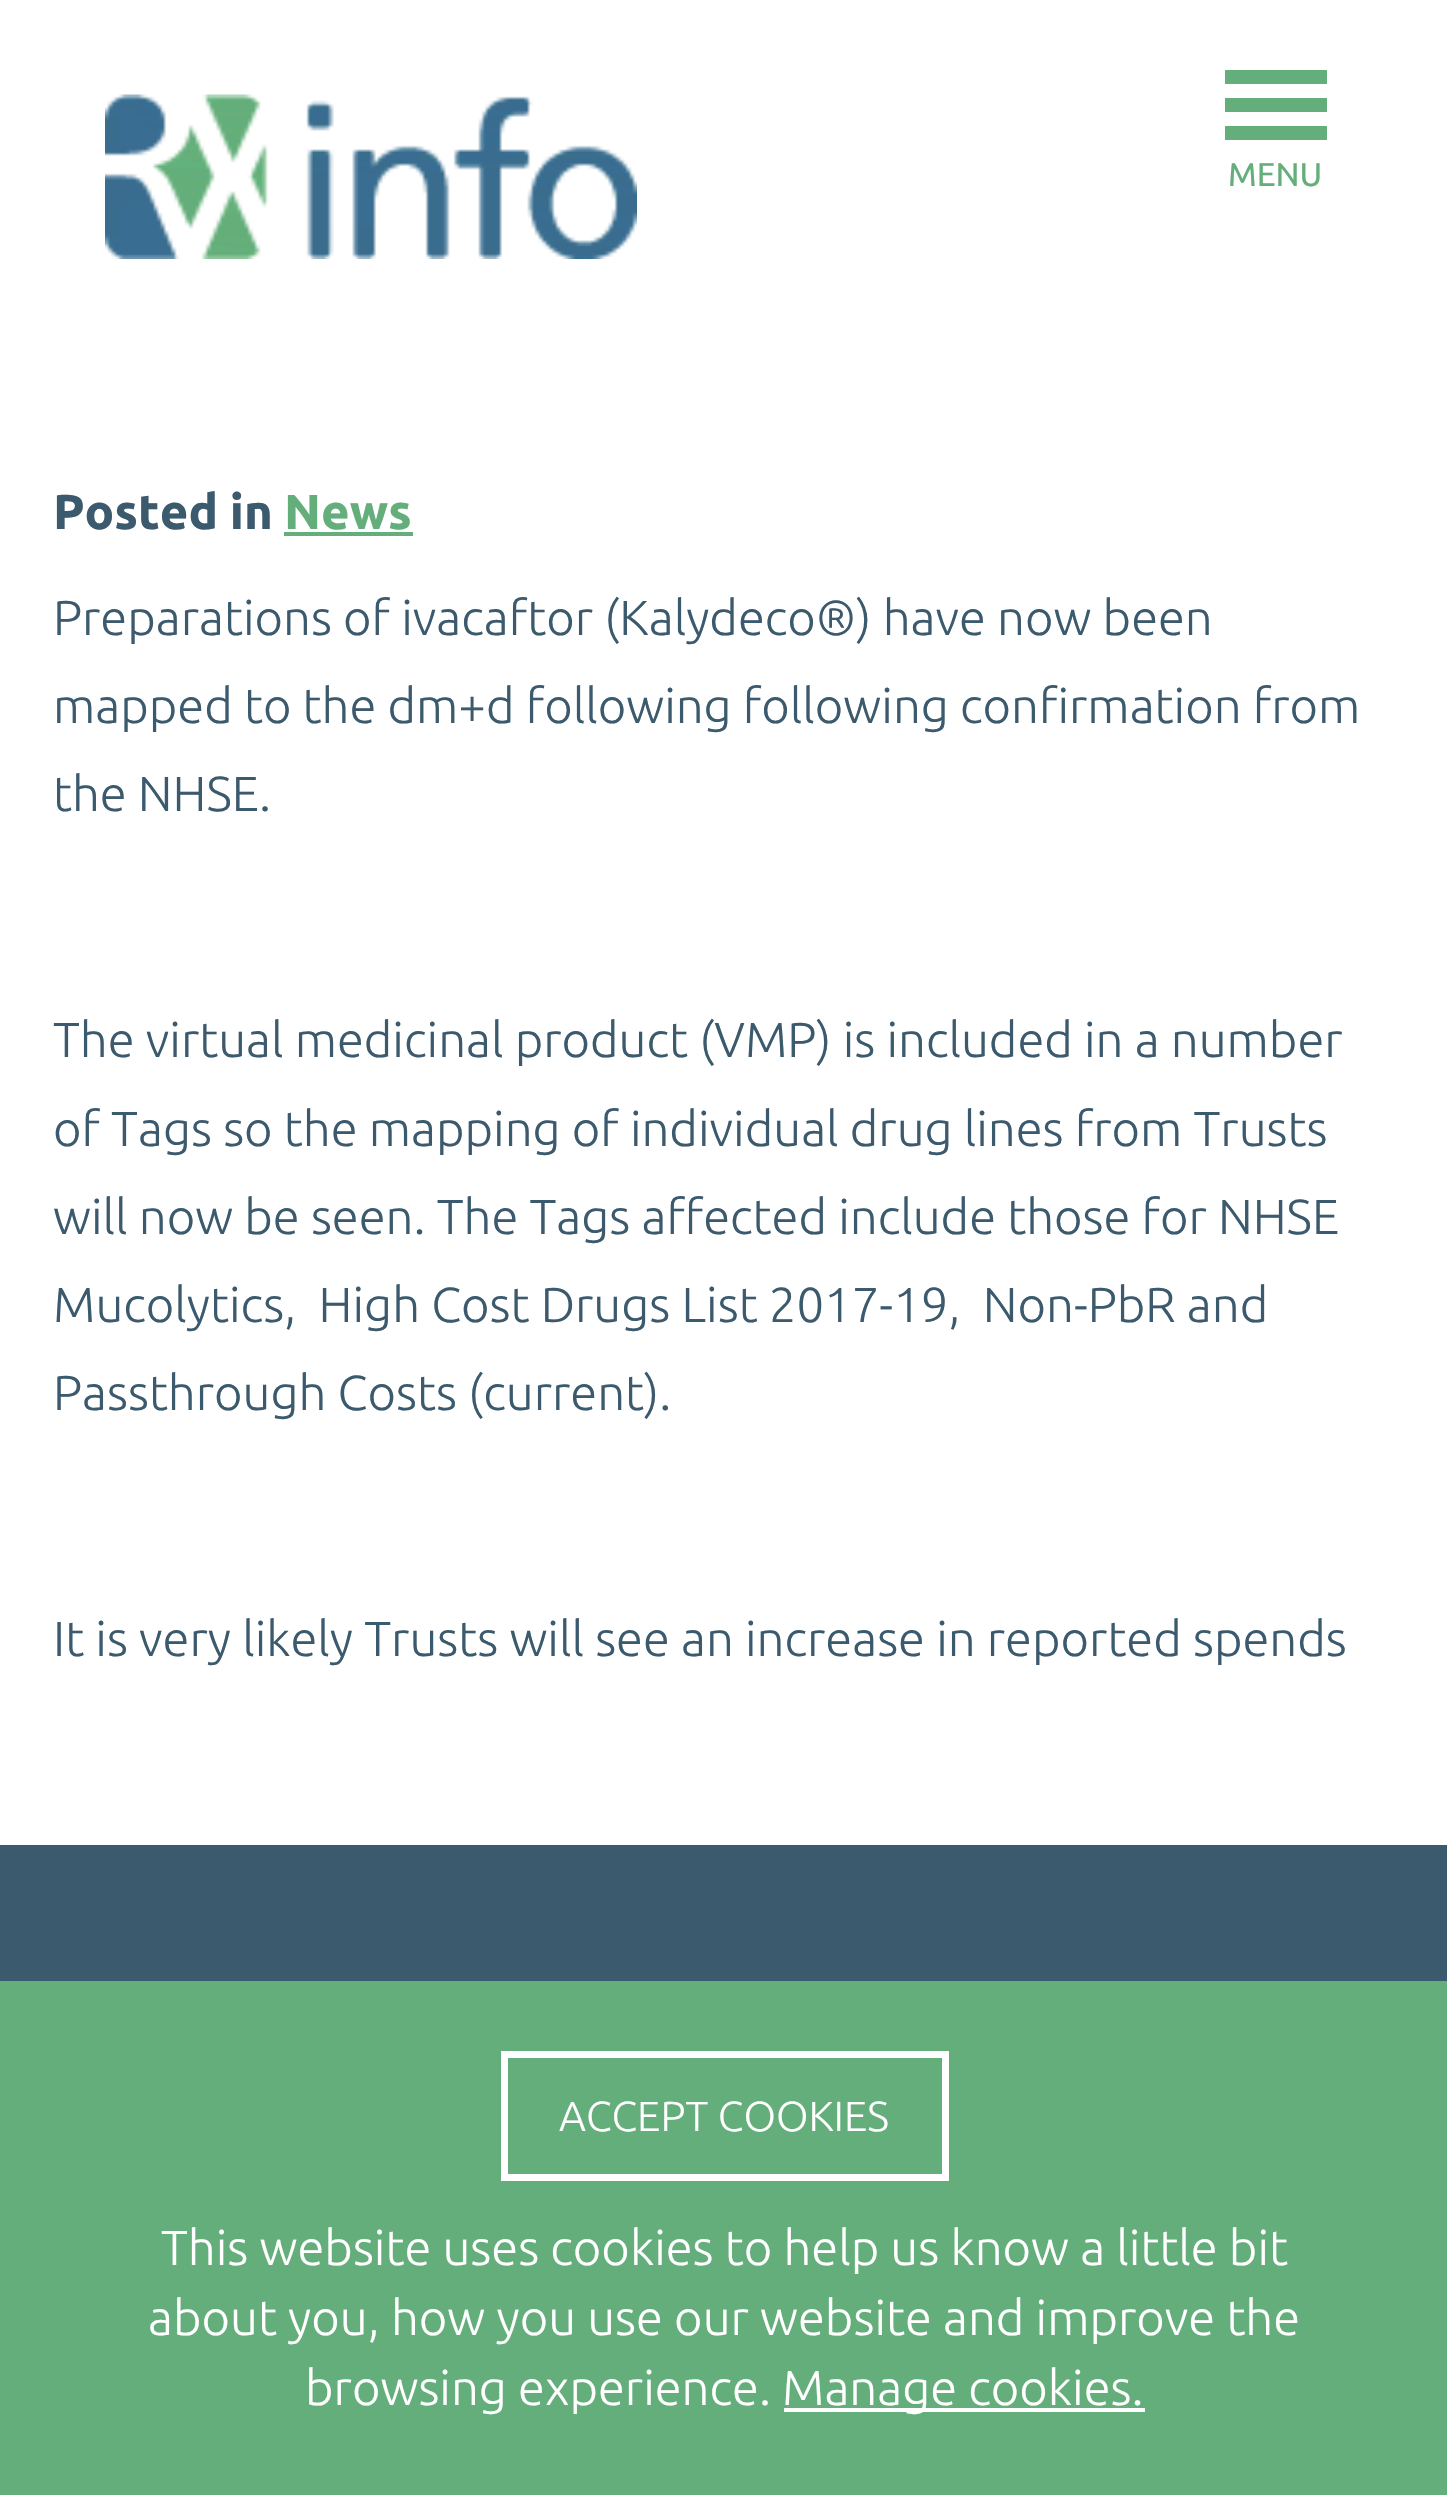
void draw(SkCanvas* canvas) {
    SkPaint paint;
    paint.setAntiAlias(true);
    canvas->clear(0xFFFFFFFF);
    canvas->drawImageRect(SkImages::DeferredFromEncodedData(SkData::MakeFromFileName("img1.png")), SkRect::MakeXYWH(105, 94, 532, 165), SkSamplingOptions());
    paint.setColor(0xFF64AE7B);
    canvas->drawRect(SkRect::MakeXYWH(1225, 70, 102, 14), paint);
    canvas->drawRect(SkRect::MakeXYWH(1225, 98, 102, 14), paint);
    canvas->drawRect(SkRect::MakeXYWH(1225, 126, 102, 14), paint);
    SkFont font1(fontMgr->matchFamilyStyle("Ubuntu", SkFontStyle::Normal()), 33);
    font1.setSubpixel(true);
    canvas->drawString("MENU", 1228, 186, font1, paint);
    SkFont font2(fontMgr->matchFamilyStyle("Ubuntu", SkFontStyle::Bold()), 49);
    font2.setSubpixel(true);
    paint.setColor(0xFF3C5A6E);
    canvas->drawString("Posted in", 53, 529, font2, paint);
    paint.setColor(0xFF64AE7B);
    canvas->drawString("News", 284, 529, font2, paint);
    canvas->drawRect(SkRect::MakeXYWH(284, 532, 129, 4), paint);
    SkFont font3(fontMgr->matchFamilyStyle("Ubuntu", SkFontStyle(300, SkFontStyle::kNormal_Width, SkFontStyle::kUpright_Slant)), 49);
    font3.setSubpixel(true);
    paint.setColor(0xFF3C5A6E);
    canvas->drawString("Preparations of ivacaftor (Kalydeco®) have now been", 53, 635, font3, paint);
    canvas->drawString("mapped to the dm+d following following confirmation from", 53, 723, font3, paint);
    canvas->drawString("the NHSE.", 53, 811, font3, paint);
    canvas->drawString("The virtual medicinal product (VMP) is included in a number", 53, 1057, font3, paint);
    canvas->drawString("of Tags so the mapping of individual drug lines from Trusts", 53, 1146, font3, paint);
    canvas->drawString("will now be seen. The Tags affected include those for NHSE", 53, 1234, font3, paint);
    canvas->drawString("Mucolytics,  High Cost Drugs List 2017-19,  Non-PbR and", 53, 1322, font3, paint);
    canvas->drawString("Passthrough Costs (current).", 53, 1410, font3, paint);
    canvas->drawString("It is very likely Trusts will see an increase in reported spends", 53, 1656, font3, paint);
    canvas->drawRect(SkRect::MakeXYWH(0, 1845, 1447, 136), paint);
    paint.setColor(0xFF64AE7B);
    canvas->drawRect(SkRect::MakeXYWH(0, 1981, 1447, 514), paint);
    paint.setStyle(SkPaint::kStroke_Style);
    paint.setStrokeWidth(7);
    paint.setColor(0xFFFFFFFF);
    canvas->drawRect(SkRect::MakeXYWH(504.5f, 2054.5f, 441, 123), paint);
    SkFont font4(fontMgr->matchFamilyStyle("Ubuntu", SkFontStyle(300, SkFontStyle::kNormal_Width, SkFontStyle::kUpright_Slant)), 42);
    font4.setSubpixel(true);
    paint.setStyle(SkPaint::kFill_Style);
    canvas->drawString("ACCEPT COOKIES", 559, 2131, font4, paint);
    canvas->drawString("This website uses cookies to help us know a little bit", 161, 2265, font3, paint);
    canvas->drawString("about you, how you use our website and improve the", 148, 2335, font3, paint);
    canvas->drawString("browsing experience.", 305, 2405, font3, paint);
    canvas->drawRect(SkRect::MakeXYWH(784, 2408, 361, 4), paint);
    canvas->drawString("Manage cookies.", 782, 2405, font3, paint);
}
